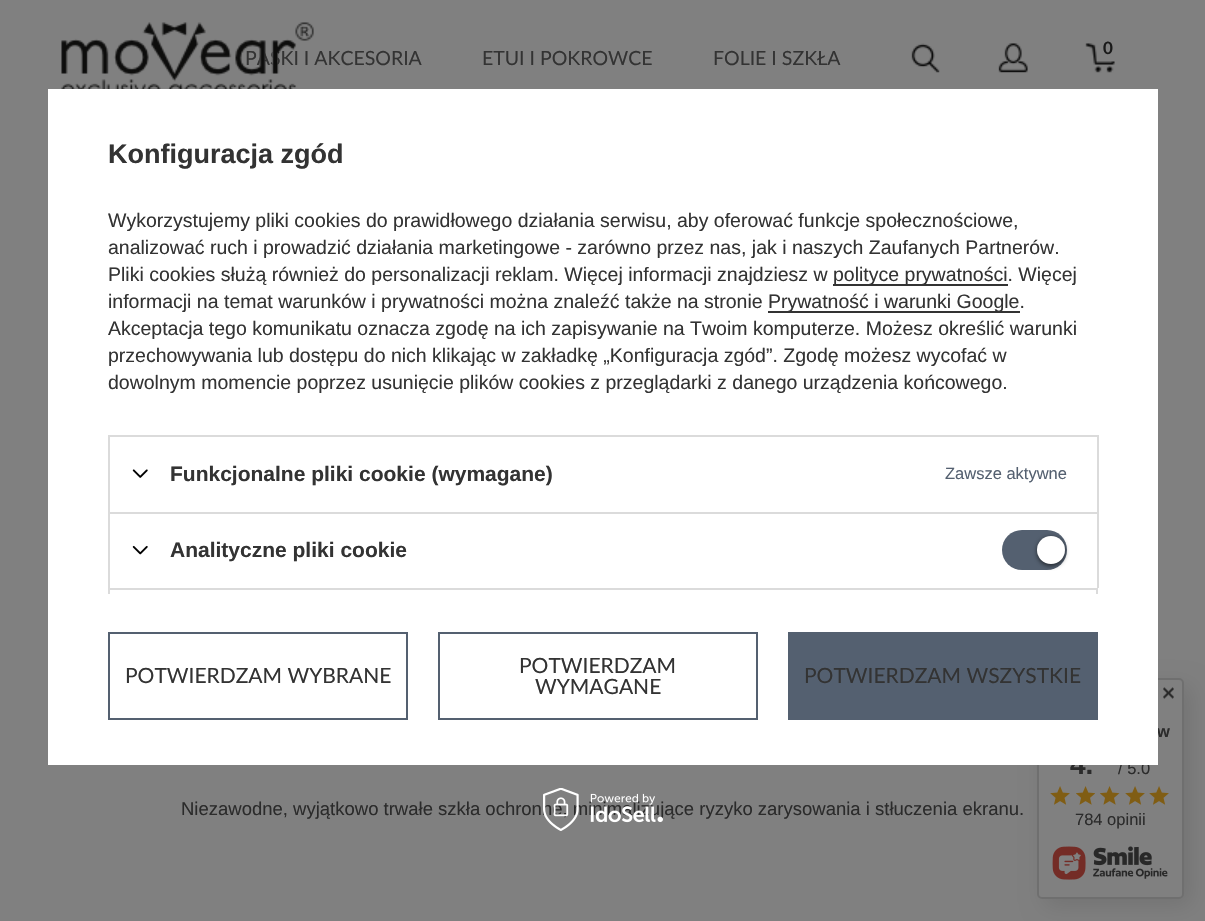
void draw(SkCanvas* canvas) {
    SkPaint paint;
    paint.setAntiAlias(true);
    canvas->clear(0xFF808080);
    SkFont font1(fontMgr->matchFamilyStyle("Lato", SkFontStyle::Normal()), 19.5f);
    font1.setSubpixel(true);
    paint.setColor(0xFF333333);
    canvas->drawString("PASKI I AKCESORIA", 245, 65, font1, paint);
    canvas->drawImageRect(SkImages::DeferredFromEncodedData(SkData::MakeFromFileName("img1.png")), SkRect::MakeXYWH(259, 50, 20, 16), SkSamplingOptions());
    canvas->drawImageRect(SkImages::DeferredFromEncodedData(SkData::MakeFromFileName("img2.png")), SkRect::MakeXYWH(61, 22, 253, 67), SkSamplingOptions());
    canvas->drawImageRect(SkImages::DeferredFromEncodedData(SkData::MakeFromFileName("img3.png")), SkRect::MakeXYWH(902, 43, 51, 30), SkSamplingOptions());
    canvas->drawImageRect(SkImages::DeferredFromEncodedData(SkData::MakeFromFileName("img4.png")), SkRect::MakeXYWH(998, 43, 30, 30), SkSamplingOptions());
    canvas->drawImageRect(SkImages::DeferredFromEncodedData(SkData::MakeFromFileName("img5.png")), SkRect::MakeXYWH(1085, 43, 30, 30), SkSamplingOptions());
    SkFont font2(fontMgr->matchFamilyStyle("Lato", SkFontStyle::Bold()), 17);
    font2.setSubpixel(true);
    paint.setColor(0xFF1A1A1A);
    canvas->drawString("0", 1103, 54, font2, paint);
    paint.setColor(0xFF333333);
    canvas->drawString("ETUI I POKROWCE", 482, 65, font1, paint);
    canvas->drawString("FOLIE I SZKŁA", 713, 65, font1, paint);
    paint.setColor(0x1A000000);
    paint.setMaskFilter(SkMaskFilter::MakeBlur(kNormal_SkBlurStyle, 11));
    canvas->drawRoundRect(SkRect::MakeXYWH(1044, 686, 147, 220), 5, 5, paint);
    paint.setMaskFilter(nullptr);
    paint.setColor(0xFF808080);
    canvas->drawRoundRect(SkRect::MakeXYWH(1038, 679, 145, 219), 4, 4, paint);
    paint.setStyle(SkPaint::kStroke_Style);
    paint.setStrokeWidth(2);
    paint.setColor(0xFF6F6F6F);
    canvas->drawRoundRect(SkRect::MakeXYWH(1038, 679, 145, 219), 4, 4, paint);
    SkFont font3(fontMgr->matchFamilyStyle("Liberation Sans", SkFontStyle::Bold()), 16.5f);
    font3.setSubpixel(true);
    paint.setStyle(SkPaint::kFill_Style);
    paint.setColor(0xFF2B2B2B);
    canvas->drawString("w", 1157, 737, font3, paint);
    SkFont font4(fontMgr->matchFamilyStyle("Liberation Sans", SkFontStyle::Bold()), 28);
    font4.setSubpixel(true);
    canvas->drawString("4.", 1070, 774, font4, paint);
    SkFont font5(fontMgr->matchFamilyStyle("Liberation Sans", SkFontStyle::Normal()), 16.5f);
    font5.setSubpixel(true);
    canvas->drawString("/ 5.0", 1118, 774, font5, paint);
    paint.setColor(0xFFFFFFFF);
    canvas->drawRect(SkRect::MakeXYWH(48, 89, 1110, 676), paint);
    SkFont font6(fontMgr->matchFamilyStyle("Liberation Sans", SkFontStyle::Bold()), 27);
    font6.setSubpixel(true);
    paint.setColor(0xFF333333);
    canvas->drawString("Konfiguracja zgód", 108, 163, font6, paint);
    SkFont font7(fontMgr->matchFamilyStyle("Liberation Sans", SkFontStyle::Normal()), 19.5f);
    font7.setSubpixel(true);
    canvas->drawString("Wykorzystujemy pliki cookies do prawidłowego działania serwisu, aby oferować funkcje społecznościowe,", 108, 227, font7, paint);
    canvas->drawString("analizować ruch i prowadzić działania marketingowe - zarówno przez nas, jak i naszych Zaufanych Partnerów.", 108, 254, font7, paint);
    canvas->drawString("Pliki cookies służą również do personalizacji reklam. Więcej informacji znajdziesz w", 108, 281, font7, paint);
    canvas->drawRect(SkRect::MakeXYWH(833, 284, 175, 2), paint);
    canvas->drawString("polityce prywatności. Więcej", 833, 281, font7, paint);
    canvas->drawString("informacji na temat warunków i prywatności można znaleźć także na stronie", 108, 308, font7, paint);
    canvas->drawRect(SkRect::MakeXYWH(768, 311, 252, 2), paint);
    canvas->drawString("Prywatność i warunki Google.", 768, 308, font7, paint);
    canvas->drawString("Akceptacja tego komunikatu oznacza zgodę na ich zapisywanie na Twoim komputerze. Możesz określić warunki", 108, 335, font7, paint);
    canvas->drawString("przechowywania lub dostępu do nich klikając w zakładkę „Konfiguracja zgód”. Zgodę możesz wycofać w", 108, 362, font7, paint);
    canvas->drawString("dowolnym momencie poprzez usunięcie plików cookies z przeglądarki z danego urządzenia końcowego.", 108, 389, font7, paint);
    paint.setColor(0xFFDBDBDB);
    canvas->drawRect(SkRect::MakeXYWH(108, 435, 990, 2), paint);
    canvas->drawRect(SkRect::MakeXYWH(1097, 435, 2, 77), paint);
    canvas->drawRect(SkRect::MakeXYWH(108, 435, 2, 77), paint);
    canvas->drawImageRect(SkImages::DeferredFromEncodedData(SkData::MakeFromFileName("img6.png")), SkRect::MakeXYWH(132, 469, 16, 9), SkSamplingOptions());
    SkFont font8(fontMgr->matchFamilyStyle("Liberation Sans", SkFontStyle::Bold()), 21);
    font8.setSubpixel(true);
    paint.setColor(0xFF333333);
    canvas->drawString("Funkcjonalne pliki cookie (wymagane)", 170, 481, font8, paint);
    paint.setColor(0xFF546070);
    canvas->drawString("Zawsze aktywne", 945, 479, font5, paint);
    paint.setColor(0xFFDBDBDB);
    canvas->drawRect(SkRect::MakeXYWH(108, 512, 990, 2), paint);
    canvas->drawRect(SkRect::MakeXYWH(1097, 512, 2, 76), paint);
    canvas->drawRect(SkRect::MakeXYWH(108, 512, 2, 76), paint);
    canvas->drawImageRect(SkImages::DeferredFromEncodedData(SkData::MakeFromFileName("img7.png")), SkRect::MakeXYWH(132, 545, 16, 10), SkSamplingOptions());
    paint.setColor(0xFF333333);
    canvas->drawString("Analityczne pliki cookie", 170, 557, font8, paint);
    paint.setColor(0xFF546070);
    canvas->drawRoundRect(SkRect::MakeXYWH(1002, 530, 65, 40), 20, 20, paint);
    paint.setColor(0x8F000000);
    paint.setMaskFilter(SkMaskFilter::MakeBlur(kNormal_SkBlurStyle, 2));
    canvas->drawRoundRect(SkRect::MakeXYWH(1037, 537, 28, 29), 14, 14, paint);
    paint.setMaskFilter(nullptr);
    paint.setColor(0xFFFFFFFF);
    canvas->drawCircle(1051, 550, 14, paint);
    paint.setStyle(SkPaint::kStroke_Style);
    paint.setColor(0xFF546070);
    canvas->drawRect(SkRect::MakeXYWH(109, 633, 298, 86), paint);
    canvas->drawRect(SkRect::MakeXYWH(439, 633, 318, 86), paint);
    SkFont font9(fontMgr->matchFamilyStyle("Lato", SkFontStyle::Normal()), 21);
    font9.setSubpixel(true);
    paint.setStyle(SkPaint::kFill_Style);
    paint.setColor(0xFF333333);
    canvas->drawString("POTWIERDZAM", 519, 673, font9, paint);
    paint.setColor(0xFF546070);
    canvas->drawRect(SkRect::MakeXYWH(788, 632, 310, 88), paint);
    canvas->save();
    canvas->clipRect(SkRect::MakeXYWH(93, 134, 1020, 460));
    paint.setStyle(SkPaint::kStroke_Style);
    paint.setColor(0xFFDBDBDB);
    canvas->drawRect(SkRect::MakeXYWH(109, 589, 988, 76), paint);
    canvas->restore();
    paint.setStyle(SkPaint::kFill_Style);
    paint.setColor(0xFF333333);
    canvas->drawString("POTWIERDZAM WYBRANE", 125, 683, font9, paint);
    canvas->drawString("WYMAGANE", 535, 694, font9, paint);
    canvas->drawString("POTWIERDZAM WSZYSTKIE", 804, 683, font9, paint);
    SkFont font10(fontMgr->matchFamilyStyle("Liberation Sans", SkFontStyle::Normal()), 18.5f);
    font10.setSubpixel(true);
    paint.setColor(0xFF2B2B2B);
    canvas->drawString("Niezawodne, wyjątkowo trwałe szkła ochronne, minimalizujące ryzyko zarysowania i stłuczenia ekranu.", 181, 815, font10, paint);
    canvas->drawImageRect(SkImages::DeferredFromEncodedData(SkData::MakeFromFileName("img8.png")), SkRect::MakeXYWH(543, 788, 120, 43), SkSamplingOptions());
    canvas->drawImageRect(SkImages::DeferredFromEncodedData(SkData::MakeFromFileName("img9.png")), SkRect::MakeXYWH(1163, 687, 11, 12), SkSamplingOptions());
    canvas->drawImageRect(SkImages::DeferredFromEncodedData(SkData::MakeFromFileName("img10.png")), SkRect::MakeXYWH(1050, 786, 20, 19), SkSamplingOptions());
    canvas->drawImageRect(SkImages::DeferredFromEncodedData(SkData::MakeFromFileName("img11.png")), SkRect::MakeXYWH(1076, 786, 19, 19), SkSamplingOptions());
    canvas->drawImageRect(SkImages::DeferredFromEncodedData(SkData::MakeFromFileName("img12.png")), SkRect::MakeXYWH(1100, 786, 20, 19), SkSamplingOptions());
    canvas->drawImageRect(SkImages::DeferredFromEncodedData(SkData::MakeFromFileName("img10.png")), SkRect::MakeXYWH(1125, 786, 20, 19), SkSamplingOptions());
    canvas->drawImageRect(SkImages::DeferredFromEncodedData(SkData::MakeFromFileName("img10.png")), SkRect::MakeXYWH(1149, 786, 20, 19), SkSamplingOptions());
    canvas->drawString("784 opinii", 1075, 825, font5, paint);
    canvas->drawImageRect(SkImages::DeferredFromEncodedData(SkData::MakeFromFileName("img13.png")), SkRect::MakeXYWH(1052, 846, 116, 34), SkSamplingOptions());
}
